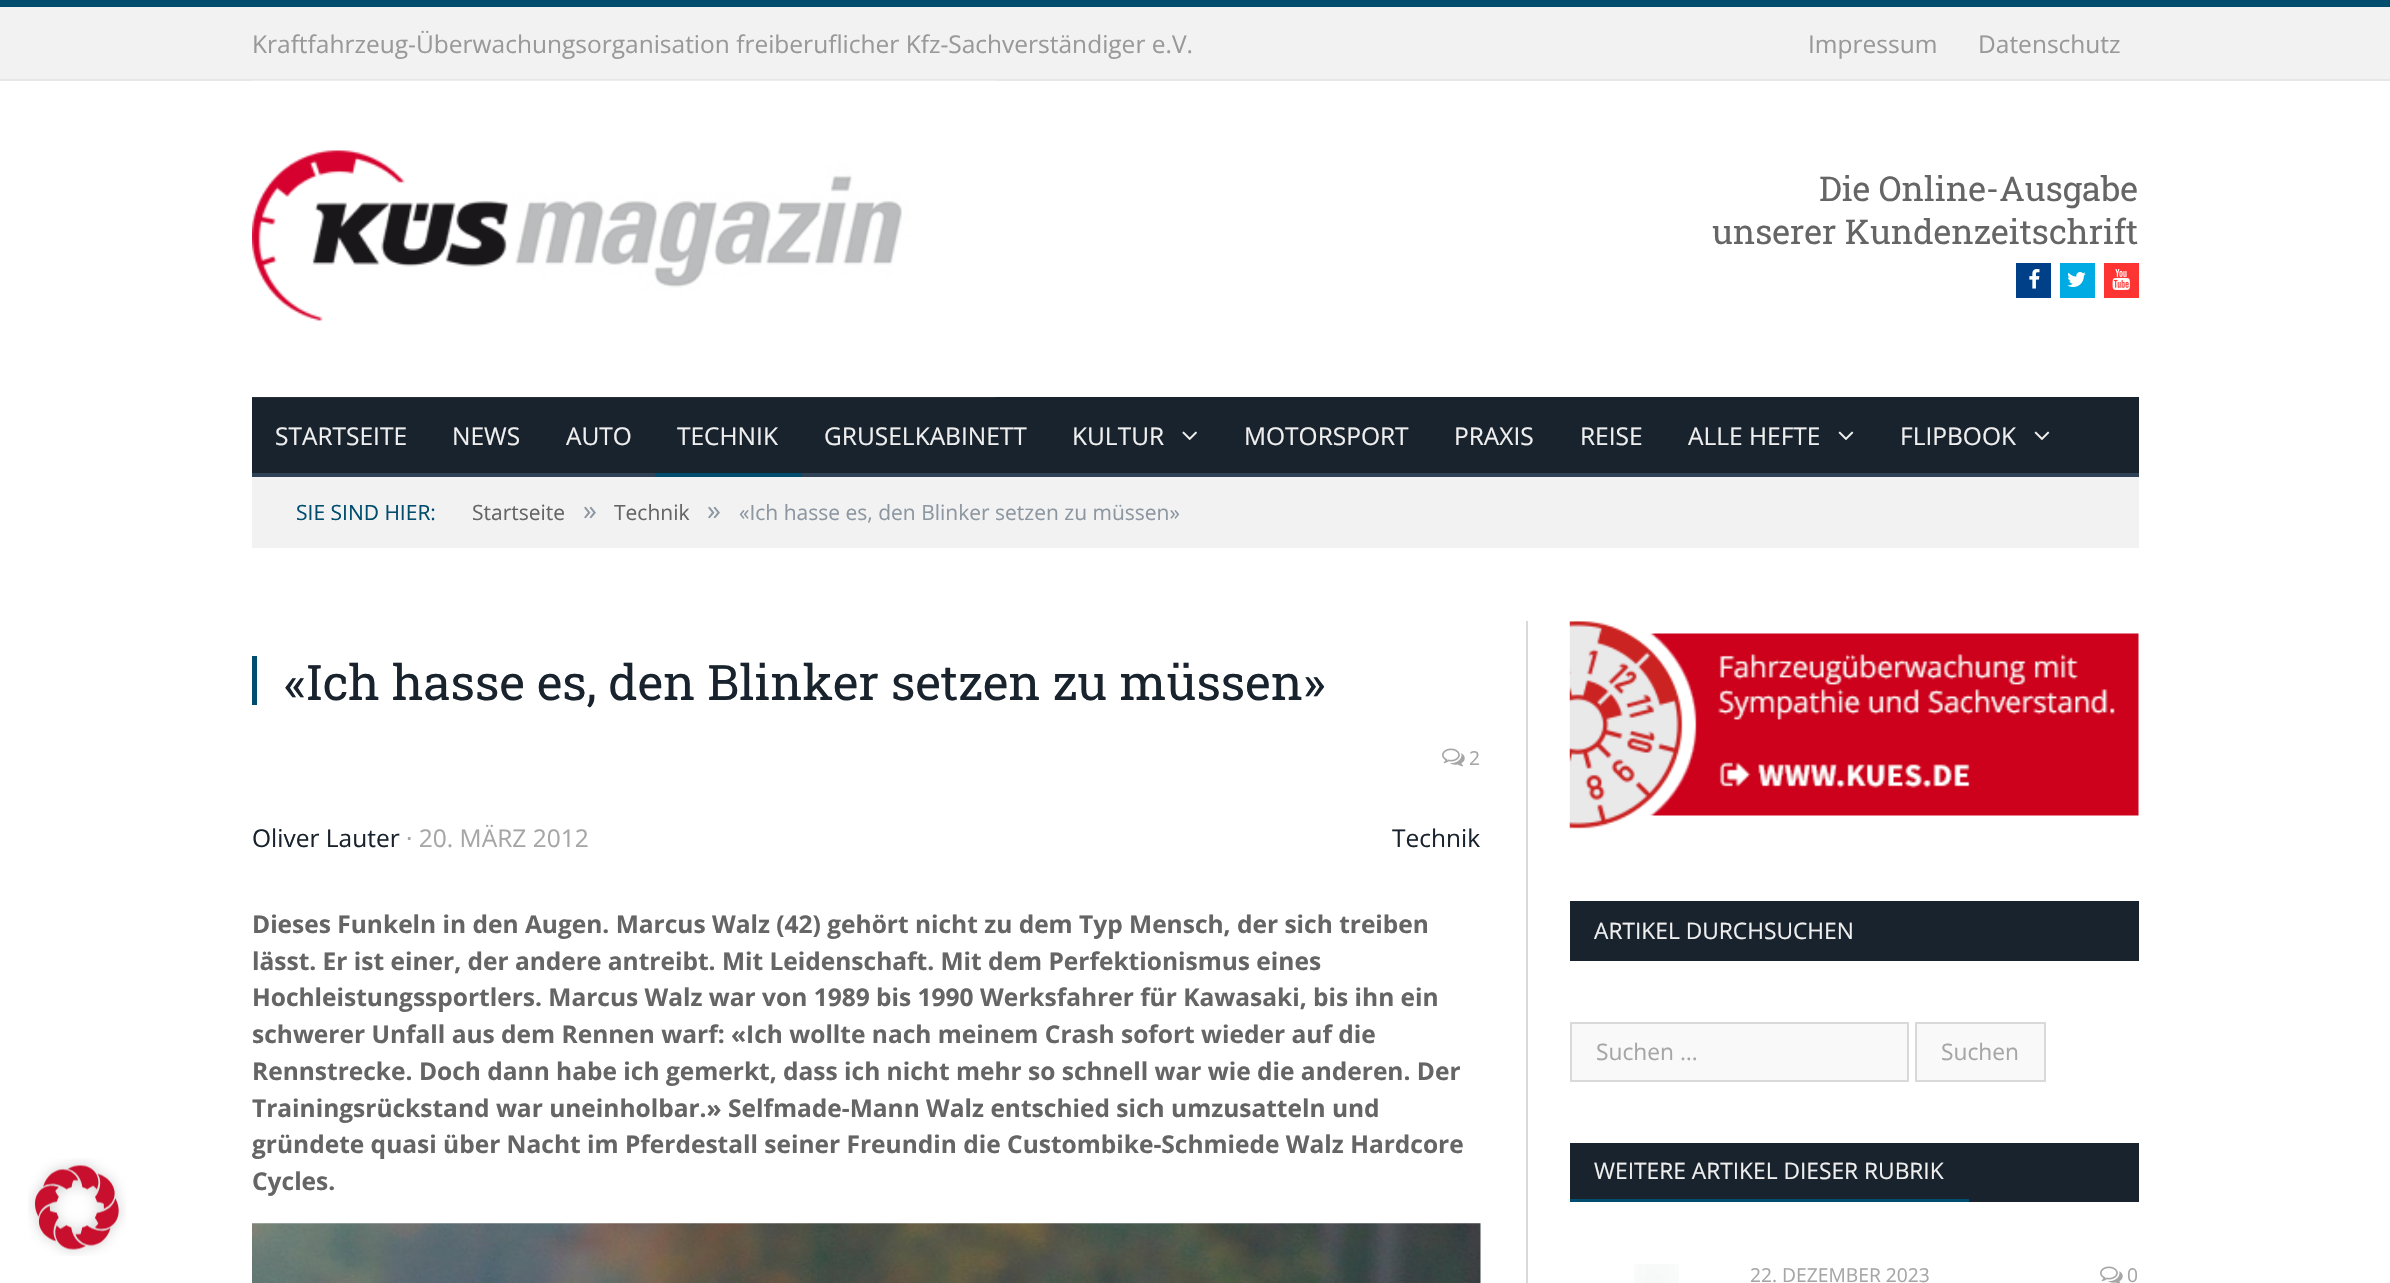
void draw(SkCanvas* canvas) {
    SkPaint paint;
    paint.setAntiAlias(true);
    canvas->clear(0xFFFFFFFF);
    canvas->drawImageRect(SkImages::DeferredFromEncodedData(SkData::MakeFromFileName("img1.png")), SkRect::MakeXYWH(28, 1158, 98, 98), SkSamplingOptions());
    paint.setColor(0xFFF2F2F2);
    canvas->drawRect(SkRect::MakeXYWH(0, 7, 2390, 72), paint);
    paint.setColor(0xFF004D6D);
    canvas->drawRect(SkRect::MakeXYWH(0, 0, 2390, 7), paint);
    paint.setColor(0xFFE7E7E7);
    canvas->drawRect(SkRect::MakeXYWH(0, 79, 2390, 2), paint);
    SkFont font1(fontMgr->matchFamilyStyle("Open Sans", SkFontStyle::Normal()), 24.5f);
    font1.setSubpixel(true);
    paint.setColor(0xFF999999);
    canvas->drawString("Kraftfahrzeug-Überwachungsorganisation freiberuflicher Kfz-Sachverständiger e.V.", 252, 53, font1, paint);
    canvas->drawString("Impressum", 1808, 53, font1, paint);
    canvas->drawString("Datenschutz", 1978, 53, font1, paint);
    paint.setColor(0xFF19232D);
    canvas->drawRect(SkRect::MakeXYWH(252, 397, 1887, 76), paint);
    canvas->drawImageRect(SkImages::DeferredFromEncodedData(SkData::MakeFromFileName("img2.png")), SkRect::MakeXYWH(252, 80, 744, 318), SkSamplingOptions());
    SkFont font2(fontMgr->matchFamilyStyle("Roboto Slab", SkFontStyle::Normal()), 34.25f);
    font2.setSubpixel(true);
    paint.setColor(0xFF656565);
    canvas->drawString("Die Online-Ausgabe", 1819, 201, font2, paint);
    canvas->drawString("unserer Kundenzeitschrift", 1712, 244, font2, paint);
    paint.setColor(0xFF004088);
    canvas->drawRect(SkRect::MakeXYWH(2016, 263, 35, 35), paint);
    canvas->drawImageRect(SkImages::DeferredFromEncodedData(SkData::MakeFromFileName("img3.png")), SkRect::MakeXYWH(2029, 269, 11, 20), SkSamplingOptions());
    paint.setColor(0xFF00ABE3);
    canvas->drawRect(SkRect::MakeXYWH(2060, 263, 35, 35), paint);
    canvas->drawImageRect(SkImages::DeferredFromEncodedData(SkData::MakeFromFileName("img4.png")), SkRect::MakeXYWH(2067, 272, 19, 15), SkSamplingOptions());
    paint.setColor(0xFFFE3432);
    canvas->drawRect(SkRect::MakeXYWH(2104, 263, 35, 35), paint);
    canvas->drawImageRect(SkImages::DeferredFromEncodedData(SkData::MakeFromFileName("img5.png")), SkRect::MakeXYWH(2112, 269, 18, 21), SkSamplingOptions());
    paint.setColor(0xFF2F4154);
    canvas->drawRect(SkRect::MakeXYWH(252, 473, 1887, 4), paint);
    paint.setColor(0xFFEFEFEF);
    canvas->drawString("STARTSEITE", 275, 445, font1, paint);
    canvas->drawString("NEWS", 452, 445, font1, paint);
    canvas->drawString("AUTO", 566, 445, font1, paint);
    paint.setColor(0xFF004D6D);
    canvas->drawRect(SkRect::MakeXYWH(655, 473, 147, 4), paint);
    paint.setColor(0xFFEFEFEF);
    canvas->drawString("TECHNIK", 677, 445, font1, paint);
    canvas->drawString("GRUSELKABINETT", 824, 445, font1, paint);
    canvas->drawString("KULTUR", 1072, 445, font1, paint);
    canvas->drawImageRect(SkImages::DeferredFromEncodedData(SkData::MakeFromFileName("img6.png")), SkRect::MakeXYWH(1182, 431, 15, 9), SkSamplingOptions());
    canvas->drawString("MOTORSPORT", 1244, 445, font1, paint);
    canvas->drawString("PRAXIS", 1454, 445, font1, paint);
    canvas->drawString("REISE", 1580, 445, font1, paint);
    canvas->drawString("ALLE HEFTE", 1688, 445, font1, paint);
    canvas->drawImageRect(SkImages::DeferredFromEncodedData(SkData::MakeFromFileName("img7.png")), SkRect::MakeXYWH(1838, 431, 16, 9), SkSamplingOptions());
    canvas->drawString("FLIPBOOK", 1900, 445, font1, paint);
    canvas->drawImageRect(SkImages::DeferredFromEncodedData(SkData::MakeFromFileName("img7.png")), SkRect::MakeXYWH(2034, 431, 16, 9), SkSamplingOptions());
    paint.setColor(0xFFF2F2F2);
    canvas->drawRect(SkRect::MakeXYWH(252, 477, 1887, 71), paint);
    SkFont font3(fontMgr->matchFamilyStyle("Open Sans", SkFontStyle::Normal()), 21);
    font3.setSubpixel(true);
    paint.setColor(0xFF004D6D);
    canvas->drawString("SIE SIND HIER:", 296, 520, font3, paint);
    paint.setColor(0xFF656565);
    canvas->drawString("Startseite", 472, 520, font3, paint);
    SkFont font4(fontMgr->matchFamilyStyle("Open Sans", SkFontStyle::Normal()), 28);
    font4.setSubpixel(true);
    paint.setColor(0xFF8D97A1);
    canvas->drawString("»", 583, 520, font4, paint);
    paint.setColor(0xFF656565);
    canvas->drawString("Technik", 614, 520, font3, paint);
    paint.setColor(0xFF8D97A1);
    canvas->drawString("»", 707, 520, font4, paint);
    canvas->drawString("«Ich hasse es, den Blinker setzen zu müssen»", 739, 520, font3, paint);
    paint.setColor(0xFF004D6D);
    canvas->drawRect(SkRect::MakeXYWH(252, 656, 5, 49), paint);
    SkFont font5(fontMgr->matchFamilyStyle("Roboto Slab", SkFontStyle::Normal()), 49);
    font5.setSubpixel(true);
    paint.setColor(0xFF19232D);
    canvas->drawString("«Ich hasse es, den Blinker setzen zu müssen»", 284, 700, font5, paint);
    canvas->drawImageRect(SkImages::DeferredFromEncodedData(SkData::MakeFromFileName("img8.png")), SkRect::MakeXYWH(1442, 748, 23, 19), SkSamplingOptions());
    SkFont font6(fontMgr->matchFamilyStyle("Open Sans", SkFontStyle::Normal()), 19.25f);
    font6.setSubpixel(true);
    paint.setColor(0xFFA6A6A6);
    canvas->drawString("2", 1469, 765, font6, paint);
    paint.setColor(0xFF19232D);
    canvas->drawString("Oliver Lauter", 252, 847, font1, paint);
    paint.setColor(0xFFA6A6A6);
    canvas->drawString("· 20. MÄRZ 2012", 406, 847, font1, paint);
    paint.setColor(0xFF19232D);
    canvas->drawString("Technik", 1392, 847, font1, paint);
    SkFont font7(fontMgr->matchFamilyStyle("Open Sans", SkFontStyle::Bold()), 24.5f);
    font7.setSubpixel(true);
    paint.setColor(0xFF656565);
    canvas->drawString("Dieses Funkeln in den Augen. Marcus Walz (42) gehört nicht zu dem Typ Mensch, der sich treiben", 252, 933, font7, paint);
    canvas->drawString("lässt. Er ist einer, der andere antreibt. Mit Leidenschaft. Mit dem Perfektionismus eines", 252, 970, font7, paint);
    canvas->drawString("Hochleistungssportlers. Marcus Walz war von 1989 bis 1990 Werksfahrer für Kawasaki, bis ihn ein", 252, 1006, font7, paint);
    canvas->drawString("schwerer Unfall aus dem Rennen warf: «Ich wollte nach meinem Crash sofort wieder auf die", 252, 1043, font7, paint);
    canvas->drawString("Rennstrecke. Doch dann habe ich gemerkt, dass ich nicht mehr so schnell war wie die anderen. Der", 252, 1080, font7, paint);
    canvas->drawString("Trainingsrückstand war uneinholbar.» Selfmade-Mann Walz entschied sich umzusatteln und", 252, 1117, font7, paint);
    canvas->drawString("gründete quasi über Nacht im Pferdestall seiner Freundin die Custombike-Schmiede Walz Hardcore", 252, 1153, font7, paint);
    canvas->drawString("Cycles.", 252, 1190, font7, paint);
    canvas->drawImageRect(SkImages::DeferredFromEncodedData(SkData::MakeFromFileName("img9.png")), SkRect::MakeXYWH(252, 1223, 1229, 60), SkSamplingOptions());
    paint.setColor(0xFFD9D9D9);
    canvas->drawRect(SkRect::MakeXYWH(1526, 621, 2, 662), paint);
    canvas->drawImageRect(SkImages::DeferredFromEncodedData(SkData::MakeFromFileName("img10.png")), SkRect::MakeXYWH(1569, 621, 570, 208), SkSamplingOptions());
    paint.setColor(0xFF19232D);
    canvas->drawRect(SkRect::MakeXYWH(1570, 901, 569, 60), paint);
    SkFont font8(fontMgr->matchFamilyStyle("Open Sans", SkFontStyle::Normal()), 22.75f);
    font8.setSubpixel(true);
    paint.setColor(0xFFEFEFEF);
    canvas->drawString("ARTIKEL DURCHSUCHEN", 1594, 939, font8, paint);
    paint.setColor(0xFFF9F9F9);
    canvas->drawRect(SkRect::MakeXYWH(1571, 1023, 337, 58), paint);
    paint.setStyle(SkPaint::kStroke_Style);
    paint.setStrokeWidth(2);
    paint.setColor(0xFFD9D9D9);
    canvas->drawRect(SkRect::MakeXYWH(1571, 1023, 337, 58), paint);
    paint.setStyle(SkPaint::kFill_Style);
    paint.setColor(0xFFA6A6A6);
    canvas->drawString("Suchen …", 1596, 1060, font8, paint);
    paint.setColor(0xFFF9F9F9);
    canvas->drawRect(SkRect::MakeXYWH(1916, 1023, 129, 58), paint);
    paint.setStyle(SkPaint::kStroke_Style);
    paint.setColor(0xFFD9D9D9);
    canvas->drawRect(SkRect::MakeXYWH(1916, 1023, 129, 58), paint);
    paint.setStyle(SkPaint::kFill_Style);
    paint.setColor(0xFFA6A6A6);
    canvas->drawString("Suchen", 1941, 1060, font8, paint);
    paint.setColor(0xFF19232D);
    canvas->drawRect(SkRect::MakeXYWH(1570, 1143, 569, 59), paint);
    paint.setColor(0xFF004D6D);
    canvas->drawRect(SkRect::MakeXYWH(1570, 1199, 399, 3), paint);
    paint.setColor(0xFFEFEFEF);
    canvas->drawString("WEITERE ARTIKEL DIESER RUBRIK", 1594, 1179, font8, paint);
    canvas->drawImageRect(SkImages::DeferredFromEncodedData(SkData::MakeFromFileName("img11.png")), SkRect::MakeXYWH(1634, 1264, 45, 19), SkSamplingOptions());
    paint.setColor(0xFFA6A6A6);
    canvas->drawString("22. DEZEMBER 2023", 1750, 1282, font6, paint);
    canvas->drawImageRect(SkImages::DeferredFromEncodedData(SkData::MakeFromFileName("img12.png")), SkRect::MakeXYWH(2100, 1266, 23, 17), SkSamplingOptions());
    canvas->drawString("0", 2127, 1282, font6, paint);
}
